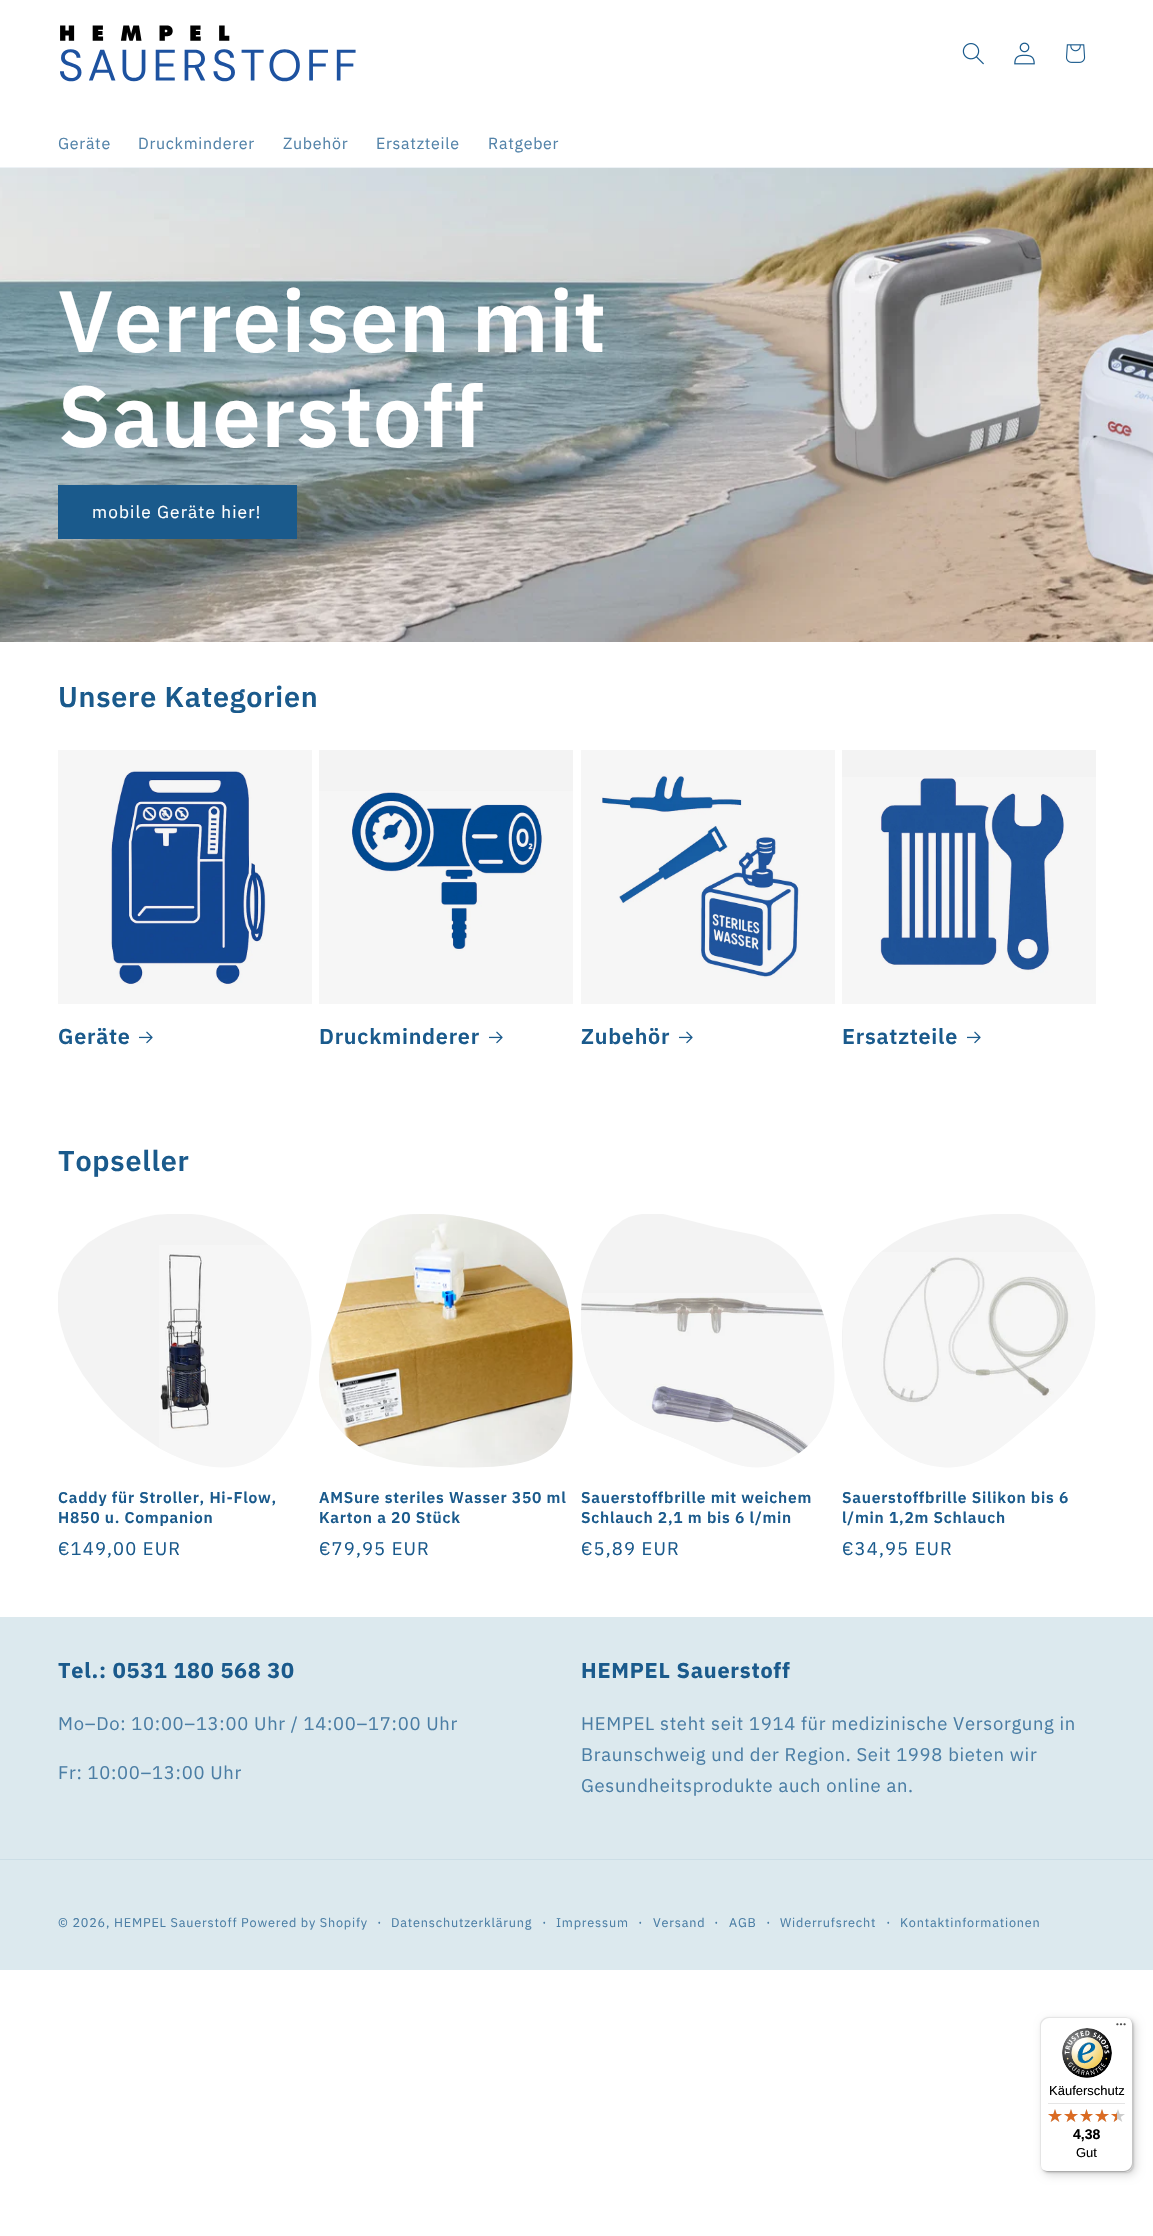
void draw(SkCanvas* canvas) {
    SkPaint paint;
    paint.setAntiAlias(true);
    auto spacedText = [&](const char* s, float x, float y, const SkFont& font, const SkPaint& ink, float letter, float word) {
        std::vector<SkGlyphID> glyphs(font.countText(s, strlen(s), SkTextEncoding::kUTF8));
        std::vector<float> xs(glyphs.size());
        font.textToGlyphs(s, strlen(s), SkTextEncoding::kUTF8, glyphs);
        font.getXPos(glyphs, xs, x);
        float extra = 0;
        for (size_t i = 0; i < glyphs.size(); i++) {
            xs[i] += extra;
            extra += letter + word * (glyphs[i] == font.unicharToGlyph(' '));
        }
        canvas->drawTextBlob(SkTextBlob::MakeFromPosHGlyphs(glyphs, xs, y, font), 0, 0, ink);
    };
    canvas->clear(0xFFFFFFFF);
    paint.setColor(0xFFEDF2F6);
    canvas->drawRect(SkRect::MakeXYWH(0, 167, 1153, 1), paint);
    canvas->drawImageRect(SkImages::DeferredFromEncodedData(SkData::MakeFromFileName("img1.png")), SkRect::MakeXYWH(60, 25, 296, 57), SkSamplingOptions());
    canvas->drawImageRect(SkImages::DeferredFromEncodedData(SkData::MakeFromFileName("img2.png")), SkRect::MakeXYWH(962, 43, 22, 22), SkSamplingOptions());
    canvas->drawImageRect(SkImages::DeferredFromEncodedData(SkData::MakeFromFileName("img3.png")), SkRect::MakeXYWH(1014, 42, 21, 23), SkSamplingOptions());
    canvas->drawImageRect(SkImages::DeferredFromEncodedData(SkData::MakeFromFileName("img4.png")), SkRect::MakeXYWH(1066, 44, 20, 19), SkSamplingOptions());
    SkFont font1(fontMgr->matchFamilyStyle("IBM Plex Sans", SkFontStyle::Normal()), 16);
    font1.setSubpixel(true);
    paint.setColor(0xFF5383A9);
    spacedText("Geräte", 58, 149, font1, paint, 0.7f, 0);
    spacedText("Druckminderer", 138, 149, font1, paint, 0.7f, 0);
    spacedText("Zubehör", 283, 149, font1, paint, 0.7f, 0);
    spacedText("Ersatzteile", 376, 149, font1, paint, 0.7f, 0);
    spacedText("Ratgeber", 488, 149, font1, paint, 0.7f, 0);
    canvas->drawImageRect(SkImages::DeferredFromEncodedData(SkData::MakeFromFileName("img5.png")), SkRect::MakeXYWH(0, 168, 1153, 474), SkSamplingOptions());
    SkFont font2(fontMgr->matchFamilyStyle("IBM Plex Sans", SkFontStyle(600, SkFontStyle::kNormal_Width, SkFontStyle::kUpright_Slant)), 86.5f);
    font2.setSubpixel(true);
    paint.setColor(0xFFFFFFFF);
    spacedText("Verreisen mit", 58, 352, font2, paint, 0.75f, 0);
    spacedText("Sauerstoff", 58, 447, font2, paint, 0.75f, 0);
    paint.setColor(0xFF1A5A8C);
    canvas->drawRect(SkRect::MakeXYWH(58, 485, 239, 54), paint);
    SkFont font3(fontMgr->matchFamilyStyle("IBM Plex Sans", SkFontStyle::Normal()), 17.25f);
    font3.setSubpixel(true);
    paint.setColor(0xFFFFFFFF);
    spacedText("mobile Geräte hier!", 92, 518, font3, paint, 1.1f, 0);
    SkFont font4(fontMgr->matchFamilyStyle("IBM Plex Sans", SkFontStyle(600, SkFontStyle::kNormal_Width, SkFontStyle::kUpright_Slant)), 28.75f);
    font4.setSubpixel(true);
    paint.setColor(0xFF1A5A8C);
    spacedText("Unsere Kategorien", 58, 707, font4, paint, 0.75f, 0);
    canvas->drawImageRect(SkImages::DeferredFromEncodedData(SkData::MakeFromFileName("img6.png")), SkRect::MakeXYWH(58, 750, 254, 254), SkSamplingOptions());
    SkFont font5(fontMgr->matchFamilyStyle("IBM Plex Sans", SkFontStyle(600, SkFontStyle::kNormal_Width, SkFontStyle::kUpright_Slant)), 21.6f);
    font5.setSubpixel(true);
    spacedText("Geräte", 58, 1044, font5, paint, 0.75f, 0);
    canvas->drawImageRect(SkImages::DeferredFromEncodedData(SkData::MakeFromFileName("img7.png")), SkRect::MakeXYWH(139, 1031, 14, 13), SkSamplingOptions());
    paint.setColor(0xFFF3F3F3);
    canvas->drawRect(SkRect::MakeXYWH(319, 750, 254, 41), paint);
    canvas->drawImageRect(SkImages::DeferredFromEncodedData(SkData::MakeFromFileName("img8.png")), SkRect::MakeXYWH(319, 791, 254, 213), SkSamplingOptions());
    paint.setColor(0xFF1A5A8C);
    spacedText("Druckminderer", 319, 1044, font5, paint, 0.75f, 0);
    canvas->drawImageRect(SkImages::DeferredFromEncodedData(SkData::MakeFromFileName("img7.png")), SkRect::MakeXYWH(489, 1031, 14, 13), SkSamplingOptions());
    canvas->drawImageRect(SkImages::DeferredFromEncodedData(SkData::MakeFromFileName("img9.png")), SkRect::MakeXYWH(581, 750, 254, 254), SkSamplingOptions());
    spacedText("Zubehör", 581, 1044, font5, paint, 0.75f, 0);
    canvas->drawImageRect(SkImages::DeferredFromEncodedData(SkData::MakeFromFileName("img7.png")), SkRect::MakeXYWH(679, 1031, 14, 13), SkSamplingOptions());
    paint.setColor(0xFFF3F3F3);
    canvas->drawRect(SkRect::MakeXYWH(842, 750, 254, 27), paint);
    canvas->drawImageRect(SkImages::DeferredFromEncodedData(SkData::MakeFromFileName("img10.png")), SkRect::MakeXYWH(842, 777, 254, 227), SkSamplingOptions());
    paint.setColor(0xFF1A5A8C);
    spacedText("Ersatzteile", 842, 1044, font5, paint, 0.75f, 0);
    canvas->drawImageRect(SkImages::DeferredFromEncodedData(SkData::MakeFromFileName("img7.png")), SkRect::MakeXYWH(967, 1031, 14, 13), SkSamplingOptions());
    spacedText("Topseller", 58, 1171, font4, paint, 0.75f, 0);
    paint.setColor(0xFFF3F3F3);
    canvas->drawPath(SkPathBuilder().moveTo(305, 1299).lineTo(300, 1286).lineTo(298, 1280).lineTo(294, 1274).lineTo(287, 1263).lineTo(283, 1258).lineTo(273, 1249).lineTo(263, 1240).lineTo(252, 1233).lineTo(234, 1224).lineTo(215, 1218).lineTo(202, 1215).lineTo(191, 1214).lineTo(168, 1214).lineTo(155, 1215).lineTo(142, 1218).lineTo(123, 1224).lineTo(111, 1229).lineTo(99, 1236).lineTo(88, 1243).lineTo(83, 1248).lineTo(74, 1257).lineTo(70, 1263).lineTo(63, 1274).lineTo(61, 1280).lineTo(58, 1293).lineTo(58, 1311).lineTo(61, 1326).lineTo(65, 1339).lineTo(70, 1351).lineTo(76, 1363).lineTo(83, 1375).lineTo(95, 1391).lineTo(103, 1401).lineTo(117, 1416).lineTo(132, 1429).lineTo(143, 1437).lineTo(159, 1448).lineTo(171, 1454).lineTo(184, 1459).lineTo(196, 1463).lineTo(209, 1466).lineTo(224, 1467).lineTo(236, 1466).lineTo(242, 1464).lineTo(249, 1462).lineTo(261, 1456).lineTo(266, 1453).lineTo(276, 1444).lineTo(284, 1433).lineTo(291, 1422).lineTo(297, 1410).lineTo(302, 1397).lineTo(305, 1384).lineTo(309, 1365).lineTo(311, 1345).lineTo(311, 1332).lineTo(309, 1318).lineTo(307, 1305).close().detach(), paint);
    canvas->drawImageRect(SkImages::DeferredFromEncodedData(SkData::MakeFromFileName("img11.png")), SkRect::MakeXYWH(159, 1245, 153, 223), SkSamplingOptions());
    SkFont font6(fontMgr->matchFamilyStyle("IBM Plex Sans", SkFontStyle(600, SkFontStyle::kNormal_Width, SkFontStyle::kUpright_Slant)), 15.6f);
    font6.setSubpixel(true);
    paint.setColor(0xFF1A5A8C);
    spacedText("Caddy für Stroller, Hi-Flow,", 58, 1503, font6, paint, 0.75f, 0);
    spacedText("H850 u. Companion", 58, 1523, font6, paint, 0.75f, 0);
    SkFont font7(fontMgr->matchFamilyStyle("IBM Plex Sans", SkFontStyle::Normal()), 18.4f);
    font7.setSubpixel(true);
    spacedText("€149,00 EUR", 58, 1555, font7, paint, 1.1f, 0);
    paint.setColor(0xFFF3F3F3);
    canvas->drawPath(SkPathBuilder().moveTo(535, 1243).lineTo(530, 1239).lineTo(518, 1232).lineTo(511, 1229).lineTo(498, 1224).lineTo(485, 1221).lineTo(471, 1218).lineTo(443, 1214).lineTo(413, 1214).lineTo(401, 1215).lineTo(387, 1219).lineTo(381, 1221).lineTo(375, 1225).lineTo(369, 1229).lineTo(365, 1234).lineTo(361, 1240).lineTo(355, 1253).lineTo(351, 1266).lineTo(342, 1300).lineTo(337, 1314).lineTo(325, 1346).lineTo(321, 1360).lineTo(320, 1367).lineTo(319, 1381).lineTo(320, 1388).lineTo(323, 1401).lineTo(329, 1414).lineTo(333, 1420).lineTo(341, 1431).lineTo(352, 1441).lineTo(357, 1445).lineTo(363, 1449).lineTo(376, 1455).lineTo(389, 1459).lineTo(403, 1462).lineTo(417, 1465).lineTo(431, 1466).lineTo(452, 1467).lineTo(474, 1467).lineTo(494, 1466).lineTo(508, 1465).lineTo(521, 1462).lineTo(535, 1458).lineTo(541, 1455).lineTo(547, 1451).lineTo(552, 1447).lineTo(557, 1441).lineTo(561, 1435).lineTo(564, 1429).lineTo(566, 1422).lineTo(569, 1409).lineTo(571, 1395).lineTo(572, 1381).lineTo(572, 1360).lineTo(572, 1339).lineTo(571, 1325).lineTo(569, 1311).lineTo(566, 1297).lineTo(562, 1284).lineTo(556, 1271).lineTo(553, 1265).lineTo(545, 1253).lineTo(541, 1248).close().detach(), paint);
    canvas->drawImageRect(SkImages::DeferredFromEncodedData(SkData::MakeFromFileName("img12.png")), SkRect::MakeXYWH(319, 1214, 254, 254), SkSamplingOptions());
    paint.setColor(0xFF1A5A8C);
    spacedText("AMSure steriles Wasser 350 ml", 319, 1503, font6, paint, 0.75f, 0);
    spacedText("Karton a 20 Stück", 319, 1523, font6, paint, 0.75f, 0);
    spacedText("€79,95 EUR", 319, 1555, font7, paint, 1.1f, 0);
    paint.setColor(0xFFF3F3F3);
    canvas->drawPath(SkPathBuilder().moveTo(780, 1246).lineTo(768, 1239).lineTo(755, 1235).lineTo(715, 1227).lineTo(676, 1217).lineTo(663, 1214).lineTo(658, 1214).lineTo(642, 1214).lineTo(636, 1215).lineTo(629, 1217).lineTo(623, 1220).lineTo(618, 1224).lineTo(612, 1228).lineTo(608, 1233).lineTo(600, 1244).lineTo(597, 1250).lineTo(591, 1263).lineTo(585, 1282).lineTo(582, 1295).lineTo(581, 1305).lineTo(581, 1329).lineTo(582, 1336).lineTo(584, 1349).lineTo(587, 1362).lineTo(592, 1375).lineTo(598, 1387).lineTo(606, 1398).lineTo(610, 1403).lineTo(615, 1408).lineTo(626, 1416).lineTo(631, 1420).lineTo(643, 1426).lineTo(681, 1441).lineTo(725, 1460).lineTo(737, 1464).lineTo(744, 1466).lineTo(756, 1467).lineTo(764, 1467).lineTo(777, 1464).lineTo(790, 1458).lineTo(796, 1455).lineTo(806, 1446).lineTo(816, 1437).lineTo(820, 1431).lineTo(826, 1419).lineTo(829, 1413).lineTo(832, 1400).lineTo(834, 1386).lineTo(834, 1373).lineTo(833, 1359).lineTo(831, 1346).lineTo(827, 1326).lineTo(821, 1307).lineTo(816, 1294).lineTo(810, 1282).lineTo(803, 1270).lineTo(795, 1259).lineTo(785, 1250).close().detach(), paint);
    canvas->drawImageRect(SkImages::DeferredFromEncodedData(SkData::MakeFromFileName("img13.png")), SkRect::MakeXYWH(581, 1293, 254, 175), SkSamplingOptions());
    paint.setColor(0xFF1A5A8C);
    spacedText("Sauerstoffbrille mit weichem", 581, 1503, font6, paint, 0.75f, 0);
    spacedText("Schlauch 2,1 m bis 6 l/min", 581, 1523, font6, paint, 0.75f, 0);
    spacedText("€5,89 EUR", 581, 1555, font7, paint, 1.1f, 0);
    paint.setColor(0xFFF3F3F3);
    canvas->drawPath(SkPathBuilder().moveTo(1046, 1222).lineTo(1034, 1217).lineTo(1021, 1214).lineTo(1016, 1214).lineTo(994, 1214).lineTo(981, 1215).lineTo(961, 1218).lineTo(935, 1224).lineTo(922, 1228).lineTo(910, 1233).lineTo(893, 1243).lineTo(882, 1251).lineTo(872, 1260).lineTo(864, 1270).lineTo(860, 1276).lineTo(853, 1287).lineTo(850, 1293).lineTo(846, 1306).lineTo(843, 1319).lineTo(842, 1332).lineTo(842, 1346).lineTo(844, 1359).lineTo(846, 1372).lineTo(850, 1385).lineTo(854, 1397).lineTo(860, 1409).lineTo(867, 1421).lineTo(876, 1431).lineTo(885, 1441).lineTo(890, 1445).lineTo(901, 1453).lineTo(913, 1459).lineTo(919, 1462).lineTo(932, 1465).lineTo(938, 1466).lineTo(951, 1467).lineTo(958, 1466).lineTo(965, 1465).lineTo(977, 1461).lineTo(989, 1455).lineTo(1000, 1448).lineTo(1016, 1435).lineTo(1042, 1414).lineTo(1061, 1396).lineTo(1070, 1386).lineTo(1078, 1375).lineTo(1081, 1369).lineTo(1087, 1357).lineTo(1089, 1351).lineTo(1093, 1338).lineTo(1095, 1325).lineTo(1095, 1312).lineTo(1095, 1298).lineTo(1094, 1292).lineTo(1092, 1285).lineTo(1088, 1272).lineTo(1083, 1260).lineTo(1079, 1254).lineTo(1072, 1243).lineTo(1067, 1238).lineTo(1058, 1229).lineTo(1052, 1225).close().detach(), paint);
    canvas->drawImageRect(SkImages::DeferredFromEncodedData(SkData::MakeFromFileName("img14.png")), SkRect::MakeXYWH(843, 1252, 253, 216), SkSamplingOptions());
    paint.setColor(0xFF1A5A8C);
    spacedText("Sauerstoffbrille Silikon bis 6", 842, 1503, font6, paint, 0.75f, 0);
    spacedText("l/min 1,2m Schlauch", 842, 1523, font6, paint, 0.75f, 0);
    spacedText("€34,95 EUR", 842, 1555, font7, paint, 1.1f, 0);
    paint.setColor(0xFFDCE9EE);
    canvas->drawRect(SkRect::MakeXYWH(0, 1617, 1153, 353), paint);
    SkFont font8(fontMgr->matchFamilyStyle("IBM Plex Sans", SkFontStyle::Bold()), 21.6f);
    font8.setSubpixel(true);
    paint.setColor(0xFF1A5A8C);
    spacedText("Tel.: 0531 180 568 30", 58, 1678, font8, paint, 0.75f, 0);
    paint.setColor(0xFF4B7EA5);
    spacedText("Mo–Do: 10:00–13:00 Uhr / 14:00–17:00 Uhr", 58, 1730, font7, paint, 0.7f, 0);
    spacedText("Fr: 10:00–13:00 Uhr", 58, 1779, font7, paint, 0.7f, 0);
    paint.setColor(0xFF1A5A8C);
    spacedText("HEMPEL Sauerstoff", 581, 1678, font8, paint, 0.75f, 0);
    paint.setColor(0xFF4B7EA5);
    spacedText("HEMPEL steht seit 1914 für medizinische Versorgung in", 581, 1730, font7, paint, 0.7f, 0);
    spacedText("Braunschweig und der Region. Seit 1998 bieten wir", 581, 1761, font7, paint, 0.7f, 0);
    spacedText("Gesundheitsprodukte auch online an.", 581, 1792, font7, paint, 0.7f, 0);
    paint.setColor(0xFFCCDEE6);
    canvas->drawRect(SkRect::MakeXYWH(0, 1859, 1153, 1), paint);
    SkFont font9(fontMgr->matchFamilyStyle("IBM Plex Sans", SkFontStyle::Normal()), 12.65f);
    font9.setSubpixel(true);
    paint.setColor(0xFF4B7EA5);
    spacedText("© 2026, HEMPEL Sauerstoff Powered by Shopify", 58, 1927, font9, paint, 0.8f, 0);
    SkFont font10(fontMgr->matchFamilyStyle("IBM Plex Sans", SkFontStyle::Normal()), 14);
    font10.setSubpixel(true);
    spacedText("·", 377, 1927, font10, paint, 0.8f, 0);
    spacedText("Datenschutzerklärung", 391, 1927, font9, paint, 0.8f, 0);
    spacedText("·", 542, 1927, font10, paint, 0.8f, 0);
    spacedText("Impressum", 556, 1927, font9, paint, 0.8f, 0);
    spacedText("·", 638, 1927, font10, paint, 0.8f, 0);
    spacedText("Versand", 653, 1927, font9, paint, 0.8f, 0);
    spacedText("·", 714, 1927, font10, paint, 0.8f, 0);
    spacedText("AGB", 729, 1927, font9, paint, 0.8f, 0);
    spacedText("·", 766, 1927, font10, paint, 0.8f, 0);
    spacedText("Widerrufsrecht", 780, 1927, font9, paint, 0.8f, 0);
    spacedText("·", 886, 1927, font10, paint, 0.8f, 0);
    spacedText("Kontaktinformationen", 900, 1927, font9, paint, 0.8f, 0);
    paint.setColor(0x26000000);
    paint.setMaskFilter(SkMaskFilter::MakeBlur(kNormal_SkBlurStyle, 4));
    canvas->drawRoundRect(SkRect::MakeXYWH(1043, 2020, 93, 155), 8, 8, paint);
    paint.setMaskFilter(nullptr);
    paint.setMaskFilter(SkMaskFilter::MakeBlur(kNormal_SkBlurStyle, 1));
    canvas->drawRoundRect(SkRect::MakeXYWH(1041, 2018, 93, 155), 8, 8, paint);
    paint.setMaskFilter(nullptr);
    paint.setColor(0xFFFFFFFF);
    canvas->drawRoundRect(SkRect::MakeXYWH(1040, 2017, 93, 155), 8, 8, paint);
    paint.setColor(0xFFE5E5E5);
    canvas->drawPath(SkPathBuilder().moveTo(1049, 2018).lineTo(1126, 2018).cubicTo(1128, 2018, 1130, 2019, 1132, 2021).cubicTo(1130, 2019, 1128, 2017, 1125, 2017).lineTo(1048, 2017).cubicTo(1044, 2017, 1040, 2021, 1040, 2025).lineTo(1040, 2164).cubicTo(1040, 2167, 1042, 2169, 1044, 2171).cubicTo(1042, 2169, 1041, 2167, 1041, 2165).lineTo(1041, 2026).cubicTo(1041, 2022, 1045, 2018, 1049, 2018).close().detach(), paint);
    paint.setColor(0xFFCCCCCC);
    canvas->drawPath(SkPathBuilder().moveTo(1041, 2168).cubicTo(1043, 2170, 1045, 2172, 1048, 2172).lineTo(1125, 2172).cubicTo(1129, 2172, 1133, 2168, 1133, 2164).lineTo(1133, 2025).cubicTo(1133, 2022, 1131, 2020, 1129, 2018).cubicTo(1131, 2020, 1132, 2022, 1132, 2024).lineTo(1132, 2163).cubicTo(1132, 2167, 1128, 2171, 1124, 2171).lineTo(1047, 2171).cubicTo(1045, 2171, 1043, 2170, 1041, 2168).close().detach(), paint);
    paint.setColor(0x33323232);
    canvas->drawPath(SkPathBuilder().moveTo(1042, 2169).cubicTo(1043, 2171, 1046, 2172, 1048, 2172).lineTo(1125, 2172).cubicTo(1129, 2172, 1133, 2168, 1133, 2164).lineTo(1133, 2025).cubicTo(1133, 2023, 1132, 2020, 1130, 2019).cubicTo(1131, 2020, 1132, 2022, 1132, 2024).lineTo(1132, 2163).cubicTo(1132, 2168, 1129, 2171, 1124, 2171).lineTo(1047, 2171).cubicTo(1045, 2171, 1043, 2170, 1042, 2169).close().detach(), paint);
    paint.setColor(0x4DFFFFFF);
    canvas->drawPath(SkPathBuilder().moveTo(1124, 2172).lineTo(1125, 2172).cubicTo(1129, 2172, 1133, 2168, 1133, 2164).lineTo(1133, 2025).cubicTo(1133, 2023, 1132, 2020, 1130, 2019).cubicTo(1131, 2020, 1132, 2022, 1132, 2024).lineTo(1132, 2164).cubicTo(1132, 2168, 1129, 2172, 1124, 2172).close().detach(), paint);
    canvas->drawImageRect(SkImages::DeferredFromEncodedData(SkData::MakeFromFileName("img15.png")), SkRect::MakeXYWH(1116, 2023, 10, 3), SkSamplingOptions());
    canvas->drawImageRect(SkImages::DeferredFromEncodedData(SkData::MakeFromFileName("img16.png")), SkRect::MakeXYWH(1062, 2028, 50, 50), SkSamplingOptions());
    SkFont font11(fontMgr->matchFamilyStyle("Liberation Sans", SkFontStyle::Normal()), 13);
    font11.setSubpixel(true);
    paint.setColor(0xFF000000);
    canvas->drawString("Käuferschutz", 1049, 2095, font11, paint);
    paint.setColor(0xFFE5E5E5);
    canvas->drawRect(SkRect::MakeXYWH(1048, 2103, 77, 1), paint);
    canvas->drawImageRect(SkImages::DeferredFromEncodedData(SkData::MakeFromFileName("img17.png")), SkRect::MakeXYWH(1048, 2109, 14, 13), SkSamplingOptions());
    canvas->drawImageRect(SkImages::DeferredFromEncodedData(SkData::MakeFromFileName("img17.png")), SkRect::MakeXYWH(1064, 2109, 14, 13), SkSamplingOptions());
    canvas->drawImageRect(SkImages::DeferredFromEncodedData(SkData::MakeFromFileName("img18.png")), SkRect::MakeXYWH(1080, 2109, 13, 13), SkSamplingOptions());
    canvas->drawImageRect(SkImages::DeferredFromEncodedData(SkData::MakeFromFileName("img17.png")), SkRect::MakeXYWH(1095, 2109, 14, 13), SkSamplingOptions());
    canvas->drawImageRect(SkImages::DeferredFromEncodedData(SkData::MakeFromFileName("img17.png")), SkRect::MakeXYWH(1111, 2109, 14, 13), SkSamplingOptions());
    canvas->drawImageRect(SkImages::DeferredFromEncodedData(SkData::MakeFromFileName("img19.png")), SkRect::MakeXYWH(1048, 2109, 14, 13), SkSamplingOptions());
    canvas->drawImageRect(SkImages::DeferredFromEncodedData(SkData::MakeFromFileName("img19.png")), SkRect::MakeXYWH(1064, 2109, 14, 13), SkSamplingOptions());
    canvas->drawImageRect(SkImages::DeferredFromEncodedData(SkData::MakeFromFileName("img20.png")), SkRect::MakeXYWH(1080, 2109, 13, 13), SkSamplingOptions());
    canvas->drawImageRect(SkImages::DeferredFromEncodedData(SkData::MakeFromFileName("img19.png")), SkRect::MakeXYWH(1095, 2109, 14, 13), SkSamplingOptions());
    canvas->drawImageRect(SkImages::DeferredFromEncodedData(SkData::MakeFromFileName("img21.png")), SkRect::MakeXYWH(1111, 2112, 6, 10), SkSamplingOptions());
    SkFont font12(fontMgr->matchFamilyStyle("Liberation Sans", SkFontStyle::Bold()), 14);
    font12.setSubpixel(true);
    paint.setColor(0xFF000000);
    canvas->drawString("4,38", 1073, 2139, font12, paint);
    canvas->drawString("Gut", 1076, 2157, font11, paint);
}
